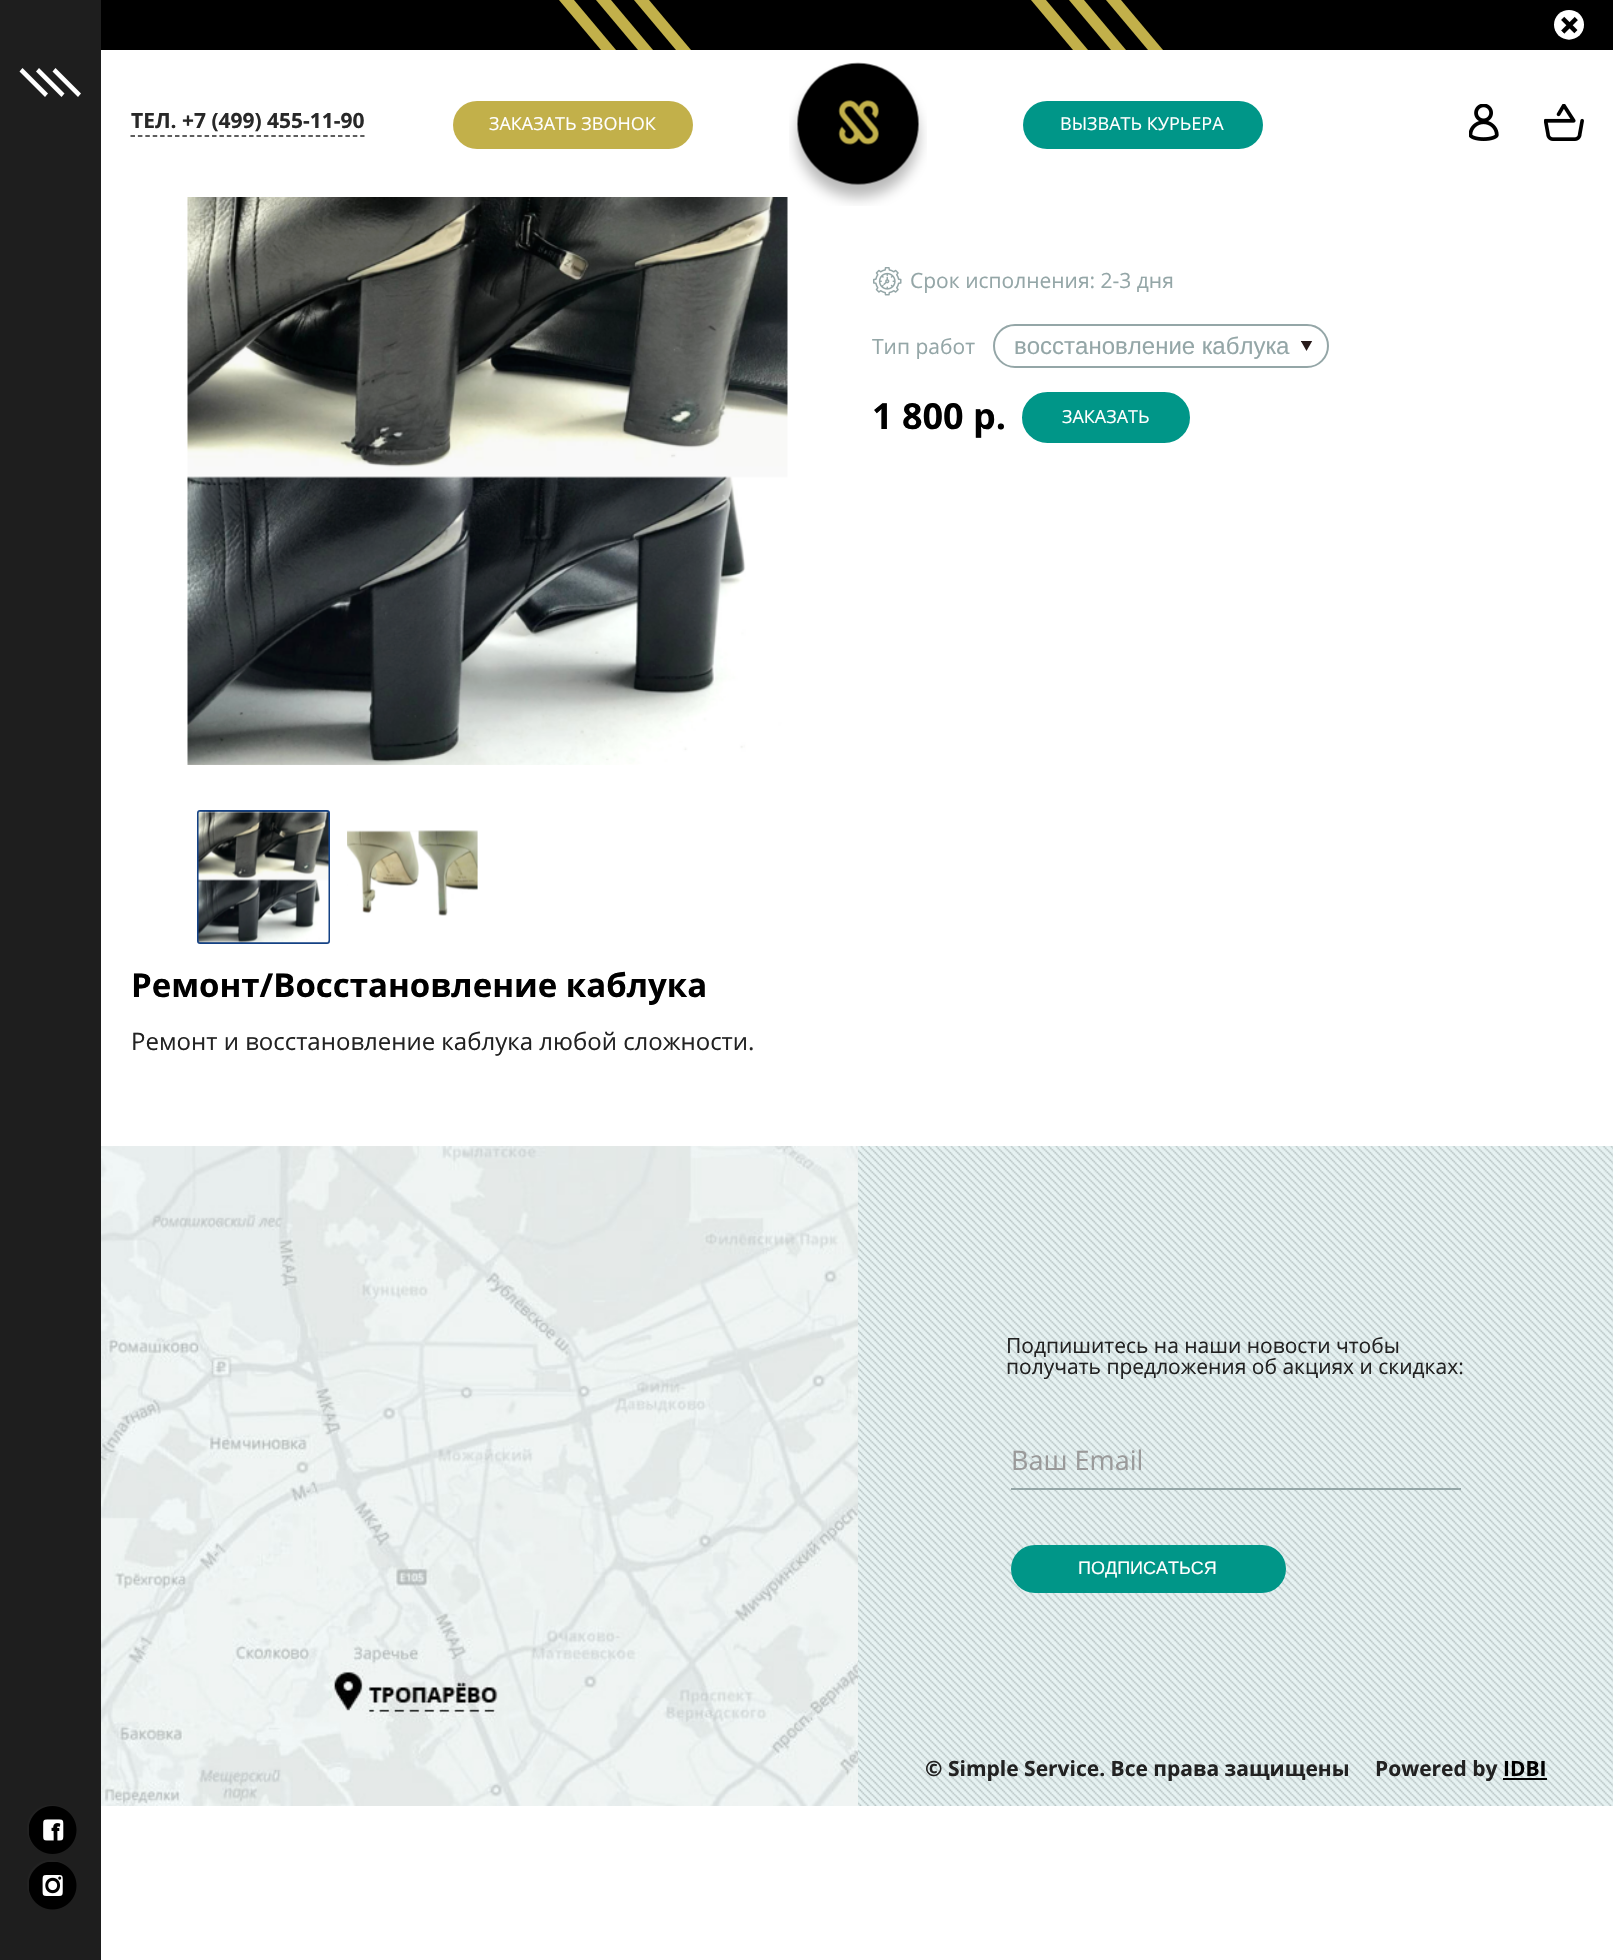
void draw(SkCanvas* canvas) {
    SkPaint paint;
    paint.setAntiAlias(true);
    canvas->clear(0xFFFFFFFF);
    paint.setColor(0xFF1E1E1E);
    canvas->drawRect(SkRect::MakeXYWH(0, 0, 101, 1960), paint);
    paint.setColor(0xFFFFFFFF);
    canvas->drawPath(SkPathBuilder().moveTo(19.5f, 71.5f).lineTo(22.5f, 68).lineTo(48, 93.5f).lineTo(45, 97).close().detach(), paint);
    canvas->drawPath(SkPathBuilder().moveTo(36, 71.5f).lineTo(39, 68).lineTo(64.5f, 93.5f).lineTo(61.5f, 97).close().detach(), paint);
    canvas->drawPath(SkPathBuilder().moveTo(52.5f, 71.5f).lineTo(55.5f, 68).lineTo(81, 93.5f).lineTo(78, 97).close().detach(), paint);
    paint.setStyle(SkPaint::kStroke_Style);
    paint.setStrokeWidth(2);
    paint.setColor(0xFF222222);
    canvas->drawCircle(51, 1829, 23, paint);
    canvas->drawImageRect(SkImages::DeferredFromEncodedData(SkData::MakeFromFileName("img1.png")), SkRect::MakeXYWH(29, 1806, 48, 48), SkSamplingOptions());
    canvas->drawCircle(51, 1884, 23, paint);
    canvas->drawImageRect(SkImages::DeferredFromEncodedData(SkData::MakeFromFileName("img2.png")), SkRect::MakeXYWH(29, 1862, 48, 48), SkSamplingOptions());
    paint.setStyle(SkPaint::kFill_Style);
    paint.setColor(0xFF000000);
    canvas->drawRect(SkRect::MakeXYWH(101, 0, 1512, 50), paint);
    paint.setColor(0xFFC2B04A);
    canvas->drawPath(SkPathBuilder().moveTo(559, 0).lineTo(574, 0).lineTo(616, 50).lineTo(601, 50).close().detach(), paint);
    canvas->drawPath(SkPathBuilder().moveTo(596, 0).lineTo(611, 0).lineTo(653, 50).lineTo(638, 50).close().detach(), paint);
    canvas->drawPath(SkPathBuilder().moveTo(634, 0).lineTo(649, 0).lineTo(691, 50).lineTo(676, 50).close().detach(), paint);
    canvas->drawPath(SkPathBuilder().moveTo(1031, 0).lineTo(1046, 0).lineTo(1088, 50).lineTo(1073, 50).close().detach(), paint);
    canvas->drawPath(SkPathBuilder().moveTo(1069, 0).lineTo(1084, 0).lineTo(1126, 50).lineTo(1111, 50).close().detach(), paint);
    canvas->drawPath(SkPathBuilder().moveTo(1106, 0).lineTo(1121, 0).lineTo(1163, 50).lineTo(1148, 50).close().detach(), paint);
    paint.setColor(0xFFFFFFFF);
    canvas->drawPath(SkPathBuilder().moveTo(1579.5f, 14).cubicTo(1585.5f, 20, 1585.5f, 29.5f, 1579.5f, 35.5f).cubicTo(1573.5f, 41, 1564.5f, 41, 1558.5f, 35.5f).cubicTo(1552.5f, 29.5f, 1552.5f, 20, 1558.5f, 14).cubicTo(1564.5f, 8.5f, 1573.5f, 8.5f, 1579.5f, 14).close().detach(), paint);
    canvas->drawImageRect(SkImages::DeferredFromEncodedData(SkData::MakeFromFileName("img3.png")), SkRect::MakeXYWH(1561, 16, 17, 18), SkSamplingOptions());
    paint.setStyle(SkPaint::kStroke_Style);
    paint.setStrokeWidth(1.5f);
    paint.setColor(0xFF282828);
    paint.setPathEffect(SkDashPathEffect::Make({{4.5f, 2.91f}}, 0));
    canvas->drawPath(SkPathBuilder().moveTo(130.5f, 136).lineTo(364.5f, 136).detach(), paint);
    paint.setPathEffect(nullptr);
    SkFont font1(fontMgr->matchFamilyStyle("Open Sans", SkFontStyle::Bold()), 21);
    font1.setSubpixel(true);
    paint.setStyle(SkPaint::kFill_Style);
    canvas->drawString("ТЕЛ. +7 (499) 455-11-90", 131, 128, font1, paint);
    paint.setColor(0xFFC2B04A);
    canvas->drawRoundRect(SkRect::MakeXYWH(453, 101, 240, 48), 24, 24, paint);
    SkFont font2(fontMgr->matchFamilyStyle("Open Sans", SkFontStyle::Normal()), 18);
    font2.setSubpixel(true);
    paint.setColor(0xFFFFFFFF);
    canvas->drawString("ЗАКАЗАТЬ ЗВОНОК", 489, 130, font2, paint);
    canvas->drawImageRect(SkImages::DeferredFromEncodedData(SkData::MakeFromFileName("img4.png")), SkRect::MakeXYWH(789, 62, 138, 144), SkSamplingOptions());
    paint.setColor(0xFF009688);
    canvas->drawRoundRect(SkRect::MakeXYWH(1023, 101, 240, 48), 24, 24, paint);
    paint.setColor(0xFFFFFFFF);
    canvas->drawString("ВЫЗВАТЬ КУРЬЕРА", 1060, 130, font2, paint);
    canvas->drawImageRect(SkImages::DeferredFromEncodedData(SkData::MakeFromFileName("img5.png")), SkRect::MakeXYWH(1469, 104, 30, 37), SkSamplingOptions());
    canvas->drawImageRect(SkImages::DeferredFromEncodedData(SkData::MakeFromFileName("img6.png")), SkRect::MakeXYWH(1544, 104, 40, 37), SkSamplingOptions());
    canvas->drawImageRect(SkImages::DeferredFromEncodedData(SkData::MakeFromFileName("img7.png")), SkRect::MakeXYWH(187, 197, 601, 568), SkSamplingOptions());
    paint.setStyle(SkPaint::kStroke_Style);
    paint.setStrokeWidth(2);
    paint.setColor(0xFF144184);
    canvas->drawRoundRect(SkRect::MakeXYWH(198, 811, 131, 132), 2, 2, paint);
    canvas->drawImageRect(SkImages::DeferredFromEncodedData(SkData::MakeFromFileName("img8.png")), SkRect::MakeXYWH(198, 811, 131, 132), SkSamplingOptions());
    canvas->drawImageRect(SkImages::DeferredFromEncodedData(SkData::MakeFromFileName("img9.png")), SkRect::MakeXYWH(347, 830, 131, 86), SkSamplingOptions());
    canvas->drawImageRect(SkImages::DeferredFromEncodedData(SkData::MakeFromFileName("img10.png")), SkRect::MakeXYWH(873, 267, 29, 29), SkSamplingOptions());
    SkFont font3(fontMgr->matchFamilyStyle("Open Sans", SkFontStyle::Normal()), 21);
    font3.setSubpixel(true);
    paint.setStyle(SkPaint::kFill_Style);
    paint.setColor(0xFF94A6A7);
    canvas->drawString("Срок исполнения: 2-3 дня", 910, 288, font3, paint);
    canvas->drawString("Тип работ", 872, 354, font3, paint);
    canvas->save();
    canvas->clipRect(SkRect::MakeXYWH(1301, 341, 12, 10));
    paint.setColor(0xFF281B1B);
    canvas->drawPath(SkPathBuilder().moveTo(1306.5f, 351).lineTo(1312.5f, 340.5f).lineTo(1300.5f, 340.5f).lineTo(1306.5f, 351).detach(), paint);
    canvas->restore();
    paint.setStyle(SkPaint::kStroke_Style);
    paint.setColor(0xFF94A6A7);
    canvas->drawRoundRect(SkRect::MakeXYWH(994, 325, 334, 42), 21, 21, paint);
    SkFont font4(fontMgr->matchFamilyStyle("Liberation Sans", SkFontStyle::Normal()), 24);
    font4.setSubpixel(true);
    paint.setStyle(SkPaint::kFill_Style);
    canvas->drawString("восстановление каблука", 1014, 354, font4, paint);
    SkFont font5(fontMgr->matchFamilyStyle("Open Sans", SkFontStyle::Bold()), 36);
    font5.setSubpixel(true);
    paint.setColor(0xFF000000);
    canvas->drawString("1 800 р.", 872, 429, font5, paint);
    paint.setColor(0xFF009688);
    canvas->drawRoundRect(SkRect::MakeXYWH(1023, 393, 166, 49), 24.5f, 24.5f, paint);
    paint.setStyle(SkPaint::kStroke_Style);
    canvas->drawRoundRect(SkRect::MakeXYWH(1023, 393, 166, 49), 24.5f, 24.5f, paint);
    paint.setStyle(SkPaint::kFill_Style);
    paint.setColor(0xFFFFFFFF);
    canvas->drawString("ЗАКАЗАТЬ", 1062, 423, font2, paint);
    SkFont font6(fontMgr->matchFamilyStyle("Open Sans", SkFontStyle::Bold()), 33);
    font6.setSubpixel(true);
    paint.setColor(0xFF000000);
    canvas->drawString("Ремонт/Восстановление каблука", 131, 997, font6, paint);
    SkFont font7(fontMgr->matchFamilyStyle("Open Sans", SkFontStyle::Normal()), 24);
    font7.setSubpixel(true);
    paint.setColor(0xFF222222);
    canvas->drawString("Ремонт и восстановление каблука любой сложности.", 131, 1050, font7, paint);
    canvas->drawImageRect(SkImages::DeferredFromEncodedData(SkData::MakeFromFileName("img11.png")), SkRect::MakeXYWH(101, 1146, 757, 660), SkSamplingOptions());
    canvas->drawImageRect(SkImages::DeferredFromEncodedData(SkData::MakeFromFileName("img12.png")), SkRect::MakeXYWH(858, 1146, 755, 660), SkSamplingOptions());
    canvas->drawString("Подпишитесь на наши новости чтобы", 1006, 1353, font3, paint);
    canvas->drawString("получать предложения об акциях и скидках:", 1006, 1374, font3, paint);
    paint.setColor(0xFF94A6A7);
    canvas->drawRect(SkRect::MakeXYWH(1011, 1488, 450, 2), paint);
    SkFont font8(fontMgr->matchFamilyStyle("Open Sans", SkFontStyle::Normal()), 27);
    font8.setSubpixel(true);
    paint.setColor(0xFF9A9A9A);
    canvas->drawString("Ваш Email", 1011, 1470, font8, paint);
    paint.setColor(0xFF009688);
    canvas->drawRoundRect(SkRect::MakeXYWH(1011, 1545, 275, 48), 24, 24, paint);
    SkFont font9(fontMgr->matchFamilyStyle("Liberation Sans", SkFontStyle::Normal()), 18);
    font9.setSubpixel(true);
    paint.setColor(0xFFFFFFFF);
    canvas->drawString("ПОДПИСАТЬСЯ", 1078, 1574, font9, paint);
    paint.setColor(0xFF222222);
    canvas->drawString("© Simple Service. Все права защищены", 925, 1776, font1, paint);
    canvas->drawString("Powered by", 1375, 1776, font1, paint);
    paint.setColor(0xFF000000);
    canvas->drawString("IDBI", 1503, 1776, font1, paint);
    canvas->drawRect(SkRect::MakeXYWH(1503, 1778, 44, 2), paint);
}
